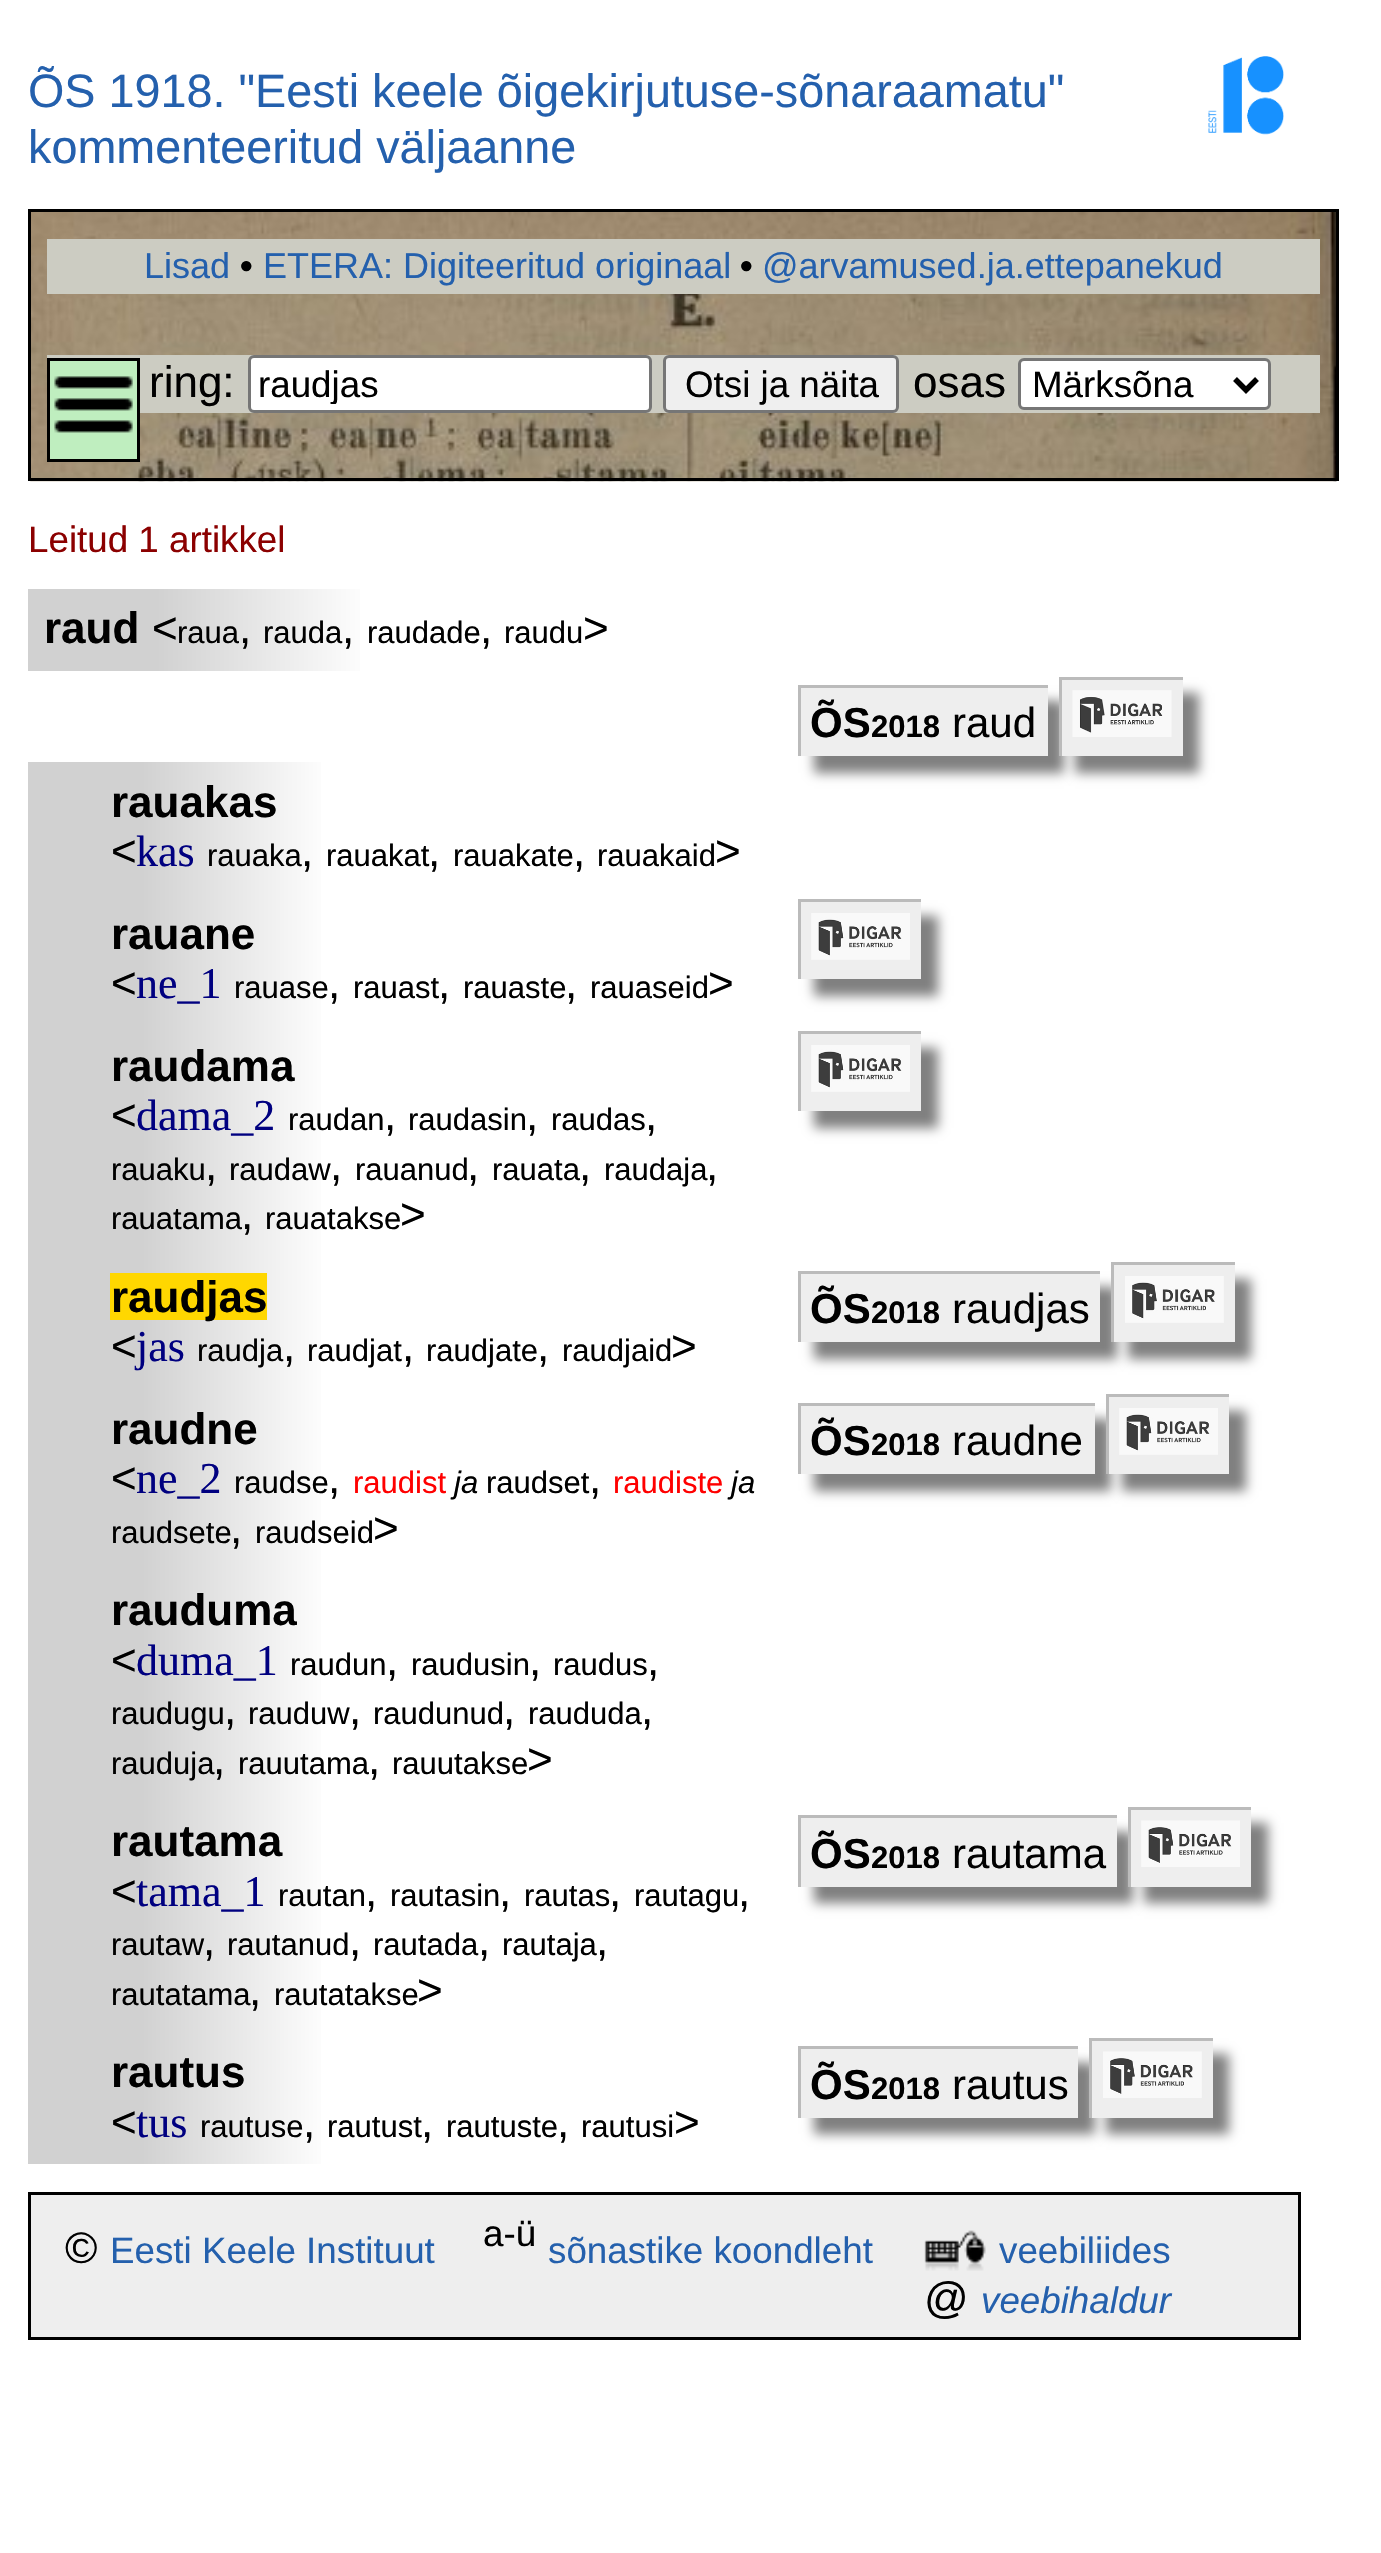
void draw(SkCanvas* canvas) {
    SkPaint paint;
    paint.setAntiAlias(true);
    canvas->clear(0xFFFFFFFF);
    SkFont font1(fontMgr->matchFamilyStyle("Liberation Sans", SkFontStyle::Normal()), 46.75f);
    font1.setSubpixel(true);
    paint.setColor(0xFF2460AD);
    canvas->drawString("ÕS 1918. \"Eesti keele õigekirjutuse-sõnaraamatu\"", 28, 107, font1, paint);
    canvas->drawString("kommenteeritud väljaanne", 28, 163, font1, paint);
    canvas->drawImageRect(SkImages::DeferredFromEncodedData(SkData::MakeFromFileName("img1.png")), SkRect::MakeXYWH(1208, 56, 76, 79), SkSamplingOptions());
    canvas->drawImageRect(SkImages::DeferredFromEncodedData(SkData::MakeFromFileName("img2.png")), SkRect::MakeXYWH(30, 212, 1307, 270), SkSamplingOptions());
    paint.setStyle(SkPaint::kStroke_Style);
    paint.setStrokeWidth(3);
    paint.setColor(0xFF000000);
    canvas->drawRect(SkRect::MakeXYWH(29.5f, 210.5f, 1308, 269), paint);
    paint.setStyle(SkPaint::kFill_Style);
    paint.setColor(0xFFCCCCC2);
    canvas->drawRect(SkRect::MakeXYWH(47, 239, 1273, 55), paint);
    SkFont font2(fontMgr->matchFamilyStyle("Liberation Sans", SkFontStyle::Normal()), 36);
    font2.setSubpixel(true);
    paint.setColor(0xFF2460AD);
    canvas->drawString("Lisad", 144, 278, font2, paint);
    SkFont font3(fontMgr->matchFamilyStyle("Liberation Sans", SkFontStyle::Bold()), 36);
    font3.setSubpixel(true);
    paint.setColor(0xFF000000);
    canvas->drawString("•", 240, 278, font3, paint);
    paint.setColor(0xFF2460AD);
    canvas->drawString("ETERA: Digiteeritud originaal", 263, 278, font2, paint);
    paint.setColor(0xFF000000);
    canvas->drawString("•", 740, 278, font3, paint);
    paint.setColor(0xFF2460AD);
    canvas->drawString("@arvamused.ja.ettepanekud", 762, 278, font2, paint);
    paint.setColor(0xFFCCCCC2);
    canvas->drawRect(SkRect::MakeXYWH(47, 355, 1273, 58), paint);
    paint.setColor(0xFFBFEEBF);
    canvas->drawRect(SkRect::MakeXYWH(48.5f, 359.5f, 90, 101), paint);
    paint.setStyle(SkPaint::kStroke_Style);
    paint.setColor(0xFF000000);
    canvas->drawRect(SkRect::MakeXYWH(48.5f, 359.5f, 90, 101), paint);
    canvas->drawImageRect(SkImages::DeferredFromEncodedData(SkData::MakeFromFileName("img3.png")), SkRect::MakeXYWH(54, 376, 79, 57), SkSamplingOptions());
    SkFont font4(fontMgr->matchFamilyStyle("Liberation Sans", SkFontStyle::Normal()), 44);
    font4.setSubpixel(true);
    paint.setStyle(SkPaint::kFill_Style);
    canvas->drawString("ring:", 149, 397, font4, paint);
    paint.setColor(0xFFFFFFFF);
    canvas->drawRoundRect(SkRect::MakeXYWH(249.5f, 356.5f, 401, 55), 4.5f, 4.5f, paint);
    paint.setStyle(SkPaint::kStroke_Style);
    paint.setColor(0xFF767676);
    canvas->drawRoundRect(SkRect::MakeXYWH(249.5f, 356.5f, 401, 55), 4.5f, 4.5f, paint);
    canvas->save();
    canvas->clipRect(SkRect::MakeXYWH(259, 363, 382, 41));
    SkFont font5(fontMgr->matchFamilyStyle("Liberation Sans", SkFontStyle::Normal()), 36.75f);
    font5.setSubpixel(true);
    paint.setStyle(SkPaint::kFill_Style);
    paint.setColor(0xFF000000);
    canvas->drawString("raudjas", 258, 397, font5, paint);
    canvas->restore();
    paint.setColor(0xFFEFEFEF);
    canvas->drawRoundRect(SkRect::MakeXYWH(664.5f, 356.5f, 233, 55), 4.5f, 4.5f, paint);
    paint.setStyle(SkPaint::kStroke_Style);
    paint.setColor(0xFF767676);
    canvas->drawRoundRect(SkRect::MakeXYWH(664.5f, 356.5f, 233, 55), 4.5f, 4.5f, paint);
    paint.setStyle(SkPaint::kFill_Style);
    paint.setColor(0xFF000000);
    canvas->drawString("Otsi ja näita", 685, 397, font5, paint);
    canvas->drawString("osas", 913, 397, font4, paint);
    paint.setColor(0xFFFFFFFF);
    canvas->drawRoundRect(SkRect::MakeXYWH(1019.5f, 359.5f, 250, 49), 4.5f, 4.5f, paint);
    paint.setStyle(SkPaint::kStroke_Style);
    paint.setColor(0xFF767676);
    canvas->drawRoundRect(SkRect::MakeXYWH(1019.5f, 359.5f, 250, 49), 4.5f, 4.5f, paint);
    paint.setStrokeWidth(5.5f);
    paint.setColor(0xFF000000);
    canvas->drawPath(SkPathBuilder().moveTo(1235, 379).lineTo(1246, 390).lineTo(1257, 379).detach(), paint);
    paint.setStyle(SkPaint::kFill_Style);
    canvas->drawString("Märksõna", 1032, 397, font5, paint);
    paint.setColor(0xFF8B0000);
    canvas->drawString("Leitud 1 artikkel", 28, 552, font5, paint);
    {
        const SkColor colors[] = {0xFFD1D1D1, 0xFFFFFFFF};
        const float stops[] = {0.15f, 0.4f};
        const SkPoint ends[] = {{28, 630}, {886, 630}};
        paint.setShader(SkGradientShader::MakeLinear(ends, colors, stops, 2, SkTileMode::kClamp));
        paint.setAlpha(255);
    }
    canvas->drawRect(SkRect::MakeXYWH(28, 589, 332, 82), paint);
    SkFont font6(fontMgr->matchFamilyStyle("Liberation Sans", SkFontStyle::Bold()), 44);
    font6.setSubpixel(true);
    paint.setShader(nullptr);
    paint.setColor(0xFF000000);
    canvas->drawString("raud", 44, 643, font6, paint);
    canvas->drawString("<", 152, 643, font4, paint);
    SkFont font7(fontMgr->matchFamilyStyle("Liberation Sans", SkFontStyle::Normal()), 31);
    font7.setSubpixel(true);
    canvas->drawString("raua", 177, 643, font7, paint);
    canvas->drawString(",", 239, 643, font4, paint);
    canvas->drawString("rauda", 263, 643, font7, paint);
    canvas->drawString(",", 342, 643, font4, paint);
    canvas->drawString("raudade", 367, 643, font7, paint);
    canvas->drawString(",", 480, 643, font4, paint);
    canvas->drawString("raudu", 504, 643, font7, paint);
    canvas->drawString(">", 583, 643, font4, paint);
    paint.setColor(0xFF808080);
    paint.setMaskFilter(SkMaskFilter::MakeBlur(kNormal_SkBlurStyle, 5.5f));
    canvas->drawRect(SkRect::MakeXYWH(814, 701, 250, 72), paint);
    paint.setMaskFilter(nullptr);
    paint.setColor(0xFFEEEEEE);
    canvas->drawRect(SkRect::MakeXYWH(801, 688, 247, 68), paint);
    paint.setColor(0xFFBBBBBB);
    canvas->drawRect(SkRect::MakeXYWH(798, 685, 250, 3), paint);
    canvas->drawRect(SkRect::MakeXYWH(798, 685, 3, 71), paint);
    SkFont font8(fontMgr->matchFamilyStyle("Liberation Sans", SkFontStyle::Bold()), 42);
    font8.setSubpixel(true);
    paint.setColor(0xFF000000);
    canvas->drawString("ÕS", 810, 737, font8, paint);
    SkFont font9(fontMgr->matchFamilyStyle("Liberation Sans", SkFontStyle::Bold()), 31);
    font9.setSubpixel(true);
    canvas->drawString("2018", 871, 737, font9, paint);
    SkFont font10(fontMgr->matchFamilyStyle("Liberation Sans", SkFontStyle::Normal()), 42);
    font10.setSubpixel(true);
    canvas->drawString("raud", 952, 737, font10, paint);
    paint.setColor(0xFF808080);
    paint.setMaskFilter(SkMaskFilter::MakeBlur(kNormal_SkBlurStyle, 5.5f));
    canvas->drawRect(SkRect::MakeXYWH(1075, 693, 124, 80), paint);
    paint.setMaskFilter(nullptr);
    paint.setColor(0xFFEEEEEE);
    canvas->drawRect(SkRect::MakeXYWH(1062, 680, 121, 76), paint);
    paint.setColor(0xFFBBBBBB);
    canvas->drawRect(SkRect::MakeXYWH(1059, 677, 124, 3), paint);
    canvas->drawRect(SkRect::MakeXYWH(1059, 677, 3, 79), paint);
    canvas->drawImageRect(SkImages::DeferredFromEncodedData(SkData::MakeFromFileName("img4.png")), SkRect::MakeXYWH(1072, 690, 100, 47), SkSamplingOptions());
    {
        const SkColor colors[] = {0xFFD1D1D1, 0xFFFFFFFF};
        const float stops[] = {0.15f, 0.4f};
        const SkPoint ends[] = {{28, 828}, {787, 828}};
        paint.setShader(SkGradientShader::MakeLinear(ends, colors, stops, 2, SkTileMode::kClamp));
        paint.setAlpha(255);
    }
    canvas->drawRect(SkRect::MakeXYWH(28, 762, 293, 132), paint);
    paint.setShader(nullptr);
    paint.setColor(0xFF000000);
    canvas->drawString("rauakas", 111, 817, font6, paint);
    canvas->drawString("<", 111, 866, font4, paint);
    SkFont font11(fontMgr->matchFamilyStyle("Liberation Serif", SkFontStyle::Normal()), 44);
    font11.setSubpixel(true);
    paint.setColor(0xFF000080);
    canvas->drawString("kas", 136, 866, font11, paint);
    paint.setColor(0xFF000000);
    canvas->drawString("rauaka", 207, 866, font7, paint);
    canvas->drawString(",", 301, 866, font4, paint);
    canvas->drawString("rauakat", 326, 866, font7, paint);
    canvas->drawString(",", 428, 866, font4, paint);
    canvas->drawString("rauakate", 453, 866, font7, paint);
    canvas->drawString(",", 573, 866, font4, paint);
    canvas->drawString("rauakaid", 597, 866, font7, paint);
    canvas->drawString(">", 715, 866, font4, paint);
    {
        const SkColor colors[] = {0xFFD1D1D1, 0xFFFFFFFF};
        const float stops[] = {0.15f, 0.4f};
        const SkPoint ends[] = {{28, 960}, {787, 960}};
        paint.setShader(SkGradientShader::MakeLinear(ends, colors, stops, 2, SkTileMode::kClamp));
        paint.setAlpha(255);
    }
    canvas->drawRect(SkRect::MakeXYWH(28, 894, 293, 132), paint);
    paint.setShader(nullptr);
    paint.setColor(0xFF000000);
    canvas->drawString("rauane", 111, 949, font6, paint);
    canvas->drawString("<", 111, 998, font4, paint);
    paint.setColor(0xFF000080);
    canvas->drawString("ne_1", 136, 998, font11, paint);
    paint.setColor(0xFF000000);
    canvas->drawString("rauase", 234, 998, font7, paint);
    canvas->drawString(",", 328, 998, font4, paint);
    canvas->drawString("rauast", 353, 998, font7, paint);
    canvas->drawString(",", 438, 998, font4, paint);
    canvas->drawString("rauaste", 463, 998, font7, paint);
    canvas->drawString(",", 565, 998, font4, paint);
    canvas->drawString("rauaseid", 590, 998, font7, paint);
    canvas->drawString(">", 708, 998, font4, paint);
    paint.setColor(0xFF808080);
    paint.setMaskFilter(SkMaskFilter::MakeBlur(kNormal_SkBlurStyle, 5.5f));
    canvas->drawRect(SkRect::MakeXYWH(814, 916, 124, 80), paint);
    paint.setMaskFilter(nullptr);
    paint.setColor(0xFFEEEEEE);
    canvas->drawRect(SkRect::MakeXYWH(801, 902, 120, 77), paint);
    paint.setColor(0xFFBBBBBB);
    canvas->drawRect(SkRect::MakeXYWH(798, 899, 123, 3), paint);
    canvas->drawRect(SkRect::MakeXYWH(798, 899, 3, 80), paint);
    canvas->drawImageRect(SkImages::DeferredFromEncodedData(SkData::MakeFromFileName("img5.png")), SkRect::MakeXYWH(811, 913, 99, 47), SkSamplingOptions());
    {
        const SkColor colors[] = {0xFFD1D1D1, 0xFFFFFFFF};
        const float stops[] = {0.15f, 0.4f};
        const SkPoint ends[] = {{28, 1141}, {787, 1141}};
        paint.setShader(SkGradientShader::MakeLinear(ends, colors, stops, 2, SkTileMode::kClamp));
        paint.setAlpha(255);
    }
    canvas->drawRect(SkRect::MakeXYWH(28, 1026, 293, 231), paint);
    paint.setShader(nullptr);
    paint.setColor(0xFF000000);
    canvas->drawString("raudama", 111, 1081, font6, paint);
    canvas->drawString("<", 111, 1130, font4, paint);
    paint.setColor(0xFF000080);
    canvas->drawString("dama_2", 136, 1130, font11, paint);
    paint.setColor(0xFF000000);
    canvas->drawString("raudan", 288, 1130, font7, paint);
    canvas->drawString(",", 384, 1130, font4, paint);
    canvas->drawString("raudasin", 408, 1130, font7, paint);
    canvas->drawString(",", 526, 1130, font4, paint);
    canvas->drawString("raudas", 551, 1130, font7, paint);
    canvas->drawString(",", 645, 1130, font4, paint);
    canvas->drawString("rauaku", 111, 1180, font7, paint);
    canvas->drawString(",", 205, 1180, font4, paint);
    canvas->drawString("raudaw", 229, 1180, font7, paint);
    canvas->drawString(",", 330, 1180, font4, paint);
    canvas->drawString("rauanud", 355, 1180, font7, paint);
    canvas->drawString(",", 467, 1180, font4, paint);
    canvas->drawString("rauata", 492, 1180, font7, paint);
    canvas->drawString(",", 579, 1180, font4, paint);
    canvas->drawString("raudaja", 604, 1180, font7, paint);
    canvas->drawString(",", 706, 1180, font4, paint);
    canvas->drawString("rauatama", 111, 1229, font7, paint);
    canvas->drawString(",", 241, 1229, font4, paint);
    canvas->drawString("rauatakse", 265, 1229, font7, paint);
    canvas->drawString(">", 400, 1229, font4, paint);
    paint.setColor(0xFF808080);
    paint.setMaskFilter(SkMaskFilter::MakeBlur(kNormal_SkBlurStyle, 5.5f));
    canvas->drawRect(SkRect::MakeXYWH(814, 1048, 124, 80), paint);
    paint.setMaskFilter(nullptr);
    paint.setColor(0xFFEEEEEE);
    canvas->drawRect(SkRect::MakeXYWH(801, 1034, 120, 77), paint);
    paint.setColor(0xFFBBBBBB);
    canvas->drawRect(SkRect::MakeXYWH(798, 1031, 123, 3), paint);
    canvas->drawRect(SkRect::MakeXYWH(798, 1031, 3, 80), paint);
    canvas->drawImageRect(SkImages::DeferredFromEncodedData(SkData::MakeFromFileName("img5.png")), SkRect::MakeXYWH(811, 1045, 99, 47), SkSamplingOptions());
    {
        const SkColor colors[] = {0xFFD1D1D1, 0xFFFFFFFF};
        const float stops[] = {0.15f, 0.4f};
        const SkPoint ends[] = {{28, 1323}, {787, 1323}};
        paint.setShader(SkGradientShader::MakeLinear(ends, colors, stops, 2, SkTileMode::kClamp));
        paint.setAlpha(255);
    }
    canvas->drawRect(SkRect::MakeXYWH(28, 1257, 293, 132), paint);
    paint.setShader(nullptr);
    paint.setColor(0xFFFFD700);
    canvas->drawRect(SkRect::MakeXYWH(110, 1273, 157, 47), paint);
    paint.setColor(0xFF000000);
    canvas->drawString("raudjas", 111, 1312, font6, paint);
    canvas->drawString("<", 111, 1361, font4, paint);
    paint.setColor(0xFF000080);
    canvas->drawString("jas", 136, 1361, font11, paint);
    paint.setColor(0xFF000000);
    canvas->drawString("raudja", 197, 1361, font7, paint);
    canvas->drawString(",", 283, 1361, font4, paint);
    canvas->drawString("raudjat", 307, 1361, font7, paint);
    canvas->drawString(",", 402, 1361, font4, paint);
    canvas->drawString("raudjate", 426, 1361, font7, paint);
    canvas->drawString(",", 537, 1361, font4, paint);
    canvas->drawString("raudjaid", 562, 1361, font7, paint);
    canvas->drawString(">", 671, 1361, font4, paint);
    paint.setColor(0xFF808080);
    paint.setMaskFilter(SkMaskFilter::MakeBlur(kNormal_SkBlurStyle, 5.5f));
    canvas->drawRect(SkRect::MakeXYWH(814, 1287, 303, 72), paint);
    paint.setMaskFilter(nullptr);
    paint.setColor(0xFFEEEEEE);
    canvas->drawRect(SkRect::MakeXYWH(801, 1274, 299, 68), paint);
    paint.setColor(0xFFBBBBBB);
    canvas->drawRect(SkRect::MakeXYWH(798, 1271, 302, 3), paint);
    canvas->drawRect(SkRect::MakeXYWH(798, 1271, 3, 71), paint);
    paint.setColor(0xFF000000);
    canvas->drawString("ÕS", 810, 1323, font8, paint);
    canvas->drawString("2018", 871, 1323, font9, paint);
    canvas->drawString("raudjas", 952, 1323, font10, paint);
    paint.setColor(0xFF808080);
    paint.setMaskFilter(SkMaskFilter::MakeBlur(kNormal_SkBlurStyle, 5.5f));
    canvas->drawRect(SkRect::MakeXYWH(1128, 1279, 123, 80), paint);
    paint.setMaskFilter(nullptr);
    paint.setColor(0xFFEEEEEE);
    canvas->drawRect(SkRect::MakeXYWH(1114, 1265, 121, 77), paint);
    paint.setColor(0xFFBBBBBB);
    canvas->drawRect(SkRect::MakeXYWH(1111, 1262, 124, 3), paint);
    canvas->drawRect(SkRect::MakeXYWH(1111, 1262, 3, 80), paint);
    canvas->drawImageRect(SkImages::DeferredFromEncodedData(SkData::MakeFromFileName("img6.png")), SkRect::MakeXYWH(1125, 1276, 99, 47), SkSamplingOptions());
    {
        const SkColor colors[] = {0xFFD1D1D1, 0xFFFFFFFF};
        const float stops[] = {0.15f, 0.4f};
        const SkPoint ends[] = {{28, 1480}, {787, 1480}};
        paint.setShader(SkGradientShader::MakeLinear(ends, colors, stops, 2, SkTileMode::kClamp));
        paint.setAlpha(255);
    }
    canvas->drawRect(SkRect::MakeXYWH(28, 1389, 293, 181), paint);
    paint.setShader(nullptr);
    paint.setColor(0xFF000000);
    canvas->drawString("raudne", 111, 1444, font6, paint);
    canvas->drawString("<", 111, 1493, font4, paint);
    paint.setColor(0xFF000080);
    canvas->drawString("ne_2", 136, 1493, font11, paint);
    paint.setColor(0xFF000000);
    canvas->drawString("raudse", 234, 1493, font7, paint);
    canvas->drawString(",", 328, 1493, font4, paint);
    paint.setColor(0xFFFF0000);
    canvas->drawString("raudist", 353, 1493, font7, paint);
    SkFont font12(fontMgr->matchFamilyStyle("Liberation Sans", SkFontStyle::Italic()), 31);
    font12.setSubpixel(true);
    paint.setColor(0xFF000000);
    canvas->drawString("ja", 454, 1493, font12, paint);
    canvas->drawString("raudset", 486, 1493, font7, paint);
    canvas->drawString(",", 589, 1493, font4, paint);
    paint.setColor(0xFFFF0000);
    canvas->drawString("raudiste", 613, 1493, font7, paint);
    paint.setColor(0xFF000000);
    canvas->drawString("ja", 731, 1493, font12, paint);
    canvas->drawString("raudsete", 111, 1543, font7, paint);
    canvas->drawString(",", 230, 1543, font4, paint);
    canvas->drawString("raudseid", 255, 1543, font7, paint);
    canvas->drawString(">", 373, 1543, font4, paint);
    paint.setColor(0xFF808080);
    paint.setMaskFilter(SkMaskFilter::MakeBlur(kNormal_SkBlurStyle, 5.5f));
    canvas->drawRect(SkRect::MakeXYWH(814, 1419, 297, 72), paint);
    paint.setMaskFilter(nullptr);
    paint.setColor(0xFFEEEEEE);
    canvas->drawRect(SkRect::MakeXYWH(801, 1406, 294, 68), paint);
    paint.setColor(0xFFBBBBBB);
    canvas->drawRect(SkRect::MakeXYWH(798, 1403, 297, 3), paint);
    canvas->drawRect(SkRect::MakeXYWH(798, 1403, 3, 71), paint);
    paint.setColor(0xFF000000);
    canvas->drawString("ÕS", 810, 1455, font8, paint);
    canvas->drawString("2018", 871, 1455, font9, paint);
    canvas->drawString("raudne", 952, 1455, font10, paint);
    paint.setColor(0xFF808080);
    paint.setMaskFilter(SkMaskFilter::MakeBlur(kNormal_SkBlurStyle, 5.5f));
    canvas->drawRect(SkRect::MakeXYWH(1122, 1411, 124, 80), paint);
    paint.setMaskFilter(nullptr);
    paint.setColor(0xFFEEEEEE);
    canvas->drawRect(SkRect::MakeXYWH(1109, 1397, 120, 77), paint);
    paint.setColor(0xFFBBBBBB);
    canvas->drawRect(SkRect::MakeXYWH(1106, 1394, 123, 3), paint);
    canvas->drawRect(SkRect::MakeXYWH(1106, 1394, 3, 80), paint);
    canvas->drawImageRect(SkImages::DeferredFromEncodedData(SkData::MakeFromFileName("img7.png")), SkRect::MakeXYWH(1119, 1408, 99, 47), SkSamplingOptions());
    {
        const SkColor colors[] = {0xFFD1D1D1, 0xFFFFFFFF};
        const float stops[] = {0.15f, 0.4f};
        const SkPoint ends[] = {{28, 1686}, {787, 1686}};
        paint.setShader(SkGradientShader::MakeLinear(ends, colors, stops, 2, SkTileMode::kClamp));
        paint.setAlpha(255);
    }
    canvas->drawRect(SkRect::MakeXYWH(28, 1570, 293, 231), paint);
    paint.setShader(nullptr);
    paint.setColor(0xFF000000);
    canvas->drawString("rauduma", 111, 1625, font6, paint);
    canvas->drawString("<", 111, 1675, font4, paint);
    paint.setColor(0xFF000080);
    canvas->drawString("duma_1", 136, 1675, font11, paint);
    paint.setColor(0xFF000000);
    canvas->drawString("raudun", 290, 1675, font7, paint);
    canvas->drawString(",", 386, 1675, font4, paint);
    canvas->drawString("raudusin", 411, 1675, font7, paint);
    canvas->drawString(",", 529, 1675, font4, paint);
    canvas->drawString("raudus", 553, 1675, font7, paint);
    canvas->drawString(",", 647, 1675, font4, paint);
    canvas->drawString("raudugu", 111, 1724, font7, paint);
    canvas->drawString(",", 224, 1724, font4, paint);
    canvas->drawString("rauduw", 248, 1724, font7, paint);
    canvas->drawString(",", 349, 1724, font4, paint);
    canvas->drawString("raudunud", 373, 1724, font7, paint);
    canvas->drawString(",", 503, 1724, font4, paint);
    canvas->drawString("raududa", 528, 1724, font7, paint);
    canvas->drawString(",", 641, 1724, font4, paint);
    canvas->drawString("rauduja", 111, 1774, font7, paint);
    canvas->drawString(",", 213, 1774, font4, paint);
    canvas->drawString("rauutama", 238, 1774, font7, paint);
    canvas->drawString(",", 368, 1774, font4, paint);
    canvas->drawString("rauutakse", 392, 1774, font7, paint);
    canvas->drawString(">", 527, 1774, font4, paint);
    {
        const SkColor colors[] = {0xFFD1D1D1, 0xFFFFFFFF};
        const float stops[] = {0.15f, 0.4f};
        const SkPoint ends[] = {{28, 1917}, {787, 1917}};
        paint.setShader(SkGradientShader::MakeLinear(ends, colors, stops, 2, SkTileMode::kClamp));
        paint.setAlpha(255);
    }
    canvas->drawRect(SkRect::MakeXYWH(28, 1801, 293, 231), paint);
    paint.setShader(nullptr);
    paint.setColor(0xFF000000);
    canvas->drawString("rautama", 111, 1856, font6, paint);
    canvas->drawString("<", 111, 1906, font4, paint);
    paint.setColor(0xFF000080);
    canvas->drawString("tama_1", 136, 1906, font11, paint);
    paint.setColor(0xFF000000);
    canvas->drawString("rautan", 278, 1906, font7, paint);
    canvas->drawString(",", 365, 1906, font4, paint);
    canvas->drawString("rautasin", 390, 1906, font7, paint);
    canvas->drawString(",", 499, 1906, font4, paint);
    canvas->drawString("rautas", 524, 1906, font7, paint);
    canvas->drawString(",", 609, 1906, font4, paint);
    canvas->drawString("rautagu", 634, 1906, font7, paint);
    canvas->drawString(",", 738, 1906, font4, paint);
    canvas->drawString("rautaw", 111, 1955, font7, paint);
    canvas->drawString(",", 203, 1955, font4, paint);
    canvas->drawString("rautanud", 227, 1955, font7, paint);
    canvas->drawString(",", 349, 1955, font4, paint);
    canvas->drawString("rautada", 373, 1955, font7, paint);
    canvas->drawString(",", 478, 1955, font4, paint);
    canvas->drawString("rautaja", 502, 1955, font7, paint);
    canvas->drawString(",", 596, 1955, font4, paint);
    canvas->drawString("rautatama", 111, 2005, font7, paint);
    canvas->drawString(",", 249, 2005, font4, paint);
    canvas->drawString("rautatakse", 274, 2005, font7, paint);
    canvas->drawString(">", 417, 2005, font4, paint);
    paint.setColor(0xFF808080);
    paint.setMaskFilter(SkMaskFilter::MakeBlur(kNormal_SkBlurStyle, 5.5f));
    canvas->drawRect(SkRect::MakeXYWH(814, 1832, 319, 71), paint);
    paint.setMaskFilter(nullptr);
    paint.setColor(0xFFEEEEEE);
    canvas->drawRect(SkRect::MakeXYWH(801, 1818, 316, 69), paint);
    paint.setColor(0xFFBBBBBB);
    canvas->drawRect(SkRect::MakeXYWH(798, 1815, 319, 3), paint);
    canvas->drawRect(SkRect::MakeXYWH(798, 1815, 3, 72), paint);
    paint.setColor(0xFF000000);
    canvas->drawString("ÕS", 810, 1868, font8, paint);
    canvas->drawString("2018", 871, 1868, font9, paint);
    canvas->drawString("rautama", 952, 1868, font10, paint);
    paint.setColor(0xFF808080);
    paint.setMaskFilter(SkMaskFilter::MakeBlur(kNormal_SkBlurStyle, 5.5f));
    canvas->drawRect(SkRect::MakeXYWH(1144, 1823, 124, 80), paint);
    paint.setMaskFilter(nullptr);
    paint.setColor(0xFFEEEEEE);
    canvas->drawRect(SkRect::MakeXYWH(1131, 1810, 120, 77), paint);
    paint.setColor(0xFFBBBBBB);
    canvas->drawRect(SkRect::MakeXYWH(1128, 1807, 123, 3), paint);
    canvas->drawRect(SkRect::MakeXYWH(1128, 1807, 3, 80), paint);
    canvas->drawImageRect(SkImages::DeferredFromEncodedData(SkData::MakeFromFileName("img8.png")), SkRect::MakeXYWH(1141, 1820, 99, 47), SkSamplingOptions());
    {
        const SkColor colors[] = {0xFFD1D1D1, 0xFFFFFFFF};
        const float stops[] = {0.15f, 0.4f};
        const SkPoint ends[] = {{28, 2098}, {787, 2098}};
        paint.setShader(SkGradientShader::MakeLinear(ends, colors, stops, 2, SkTileMode::kClamp));
        paint.setAlpha(255);
    }
    canvas->drawRect(SkRect::MakeXYWH(28, 2032, 293, 132), paint);
    paint.setShader(nullptr);
    paint.setColor(0xFF000000);
    canvas->drawString("rautus", 111, 2087, font6, paint);
    canvas->drawString("<", 111, 2137, font4, paint);
    paint.setColor(0xFF000080);
    canvas->drawString("tus", 136, 2137, font11, paint);
    paint.setColor(0xFF000000);
    canvas->drawString("rautuse", 200, 2137, font7, paint);
    canvas->drawString(",", 303, 2137, font4, paint);
    canvas->drawString("rautust", 327, 2137, font7, paint);
    canvas->drawString(",", 421, 2137, font4, paint);
    canvas->drawString("rautuste", 446, 2137, font7, paint);
    canvas->drawString(",", 557, 2137, font4, paint);
    canvas->drawString("rautusi", 581, 2137, font7, paint);
    canvas->drawString(">", 674, 2137, font4, paint);
    paint.setColor(0xFF808080);
    paint.setMaskFilter(SkMaskFilter::MakeBlur(kNormal_SkBlurStyle, 5.5f));
    canvas->drawRect(SkRect::MakeXYWH(814, 2063, 281, 71), paint);
    paint.setMaskFilter(nullptr);
    paint.setColor(0xFFEEEEEE);
    canvas->drawRect(SkRect::MakeXYWH(801, 2049, 277, 69), paint);
    paint.setColor(0xFFBBBBBB);
    canvas->drawRect(SkRect::MakeXYWH(798, 2046, 280, 3), paint);
    canvas->drawRect(SkRect::MakeXYWH(798, 2046, 3, 72), paint);
    paint.setColor(0xFF000000);
    canvas->drawString("ÕS", 810, 2099, font8, paint);
    canvas->drawString("2018", 871, 2099, font9, paint);
    canvas->drawString("rautus", 952, 2099, font10, paint);
    paint.setColor(0xFF808080);
    paint.setMaskFilter(SkMaskFilter::MakeBlur(kNormal_SkBlurStyle, 5.5f));
    canvas->drawRect(SkRect::MakeXYWH(1106, 2054, 123, 80), paint);
    paint.setMaskFilter(nullptr);
    paint.setColor(0xFFEEEEEE);
    canvas->drawRect(SkRect::MakeXYWH(1092, 2041, 121, 77), paint);
    paint.setColor(0xFFBBBBBB);
    canvas->drawRect(SkRect::MakeXYWH(1089, 2038, 124, 3), paint);
    canvas->drawRect(SkRect::MakeXYWH(1089, 2038, 3, 80), paint);
    canvas->drawImageRect(SkImages::DeferredFromEncodedData(SkData::MakeFromFileName("img9.png")), SkRect::MakeXYWH(1103, 2051, 99, 47), SkSamplingOptions());
    paint.setColor(0xFFEEEEEE);
    canvas->drawRect(SkRect::MakeXYWH(29.5f, 2193.5f, 1270, 145), paint);
    paint.setStyle(SkPaint::kStroke_Style);
    paint.setStrokeWidth(3);
    paint.setColor(0xFF000000);
    canvas->drawRect(SkRect::MakeXYWH(29.5f, 2193.5f, 1270, 145), paint);
    paint.setStyle(SkPaint::kFill_Style);
    canvas->drawString("©", 65, 2263, font4, paint);
    paint.setColor(0xFF2460AD);
    canvas->drawString("Eesti Keele Instituut", 110, 2263, font5, paint);
    paint.setColor(0xFF000000);
    canvas->drawString("a-ü", 483, 2246, font5, paint);
    paint.setColor(0xFF2460AD);
    canvas->drawString("sõnastike koondleht", 548, 2263, font5, paint);
    canvas->drawImageRect(SkImages::DeferredFromEncodedData(SkData::MakeFromFileName("img10.png")), SkRect::MakeXYWH(924, 2230, 62, 41), SkSamplingOptions());
    canvas->drawString("veebiliides", 999, 2263, font5, paint);
    paint.setColor(0xFF000000);
    canvas->drawString("@", 924, 2313, font4, paint);
    SkFont font13(fontMgr->matchFamilyStyle("Liberation Sans", SkFontStyle::Italic()), 36.75f);
    font13.setSubpixel(true);
    paint.setColor(0xFF2460AD);
    canvas->drawString("veebihaldur", 981, 2313, font13, paint);
}
